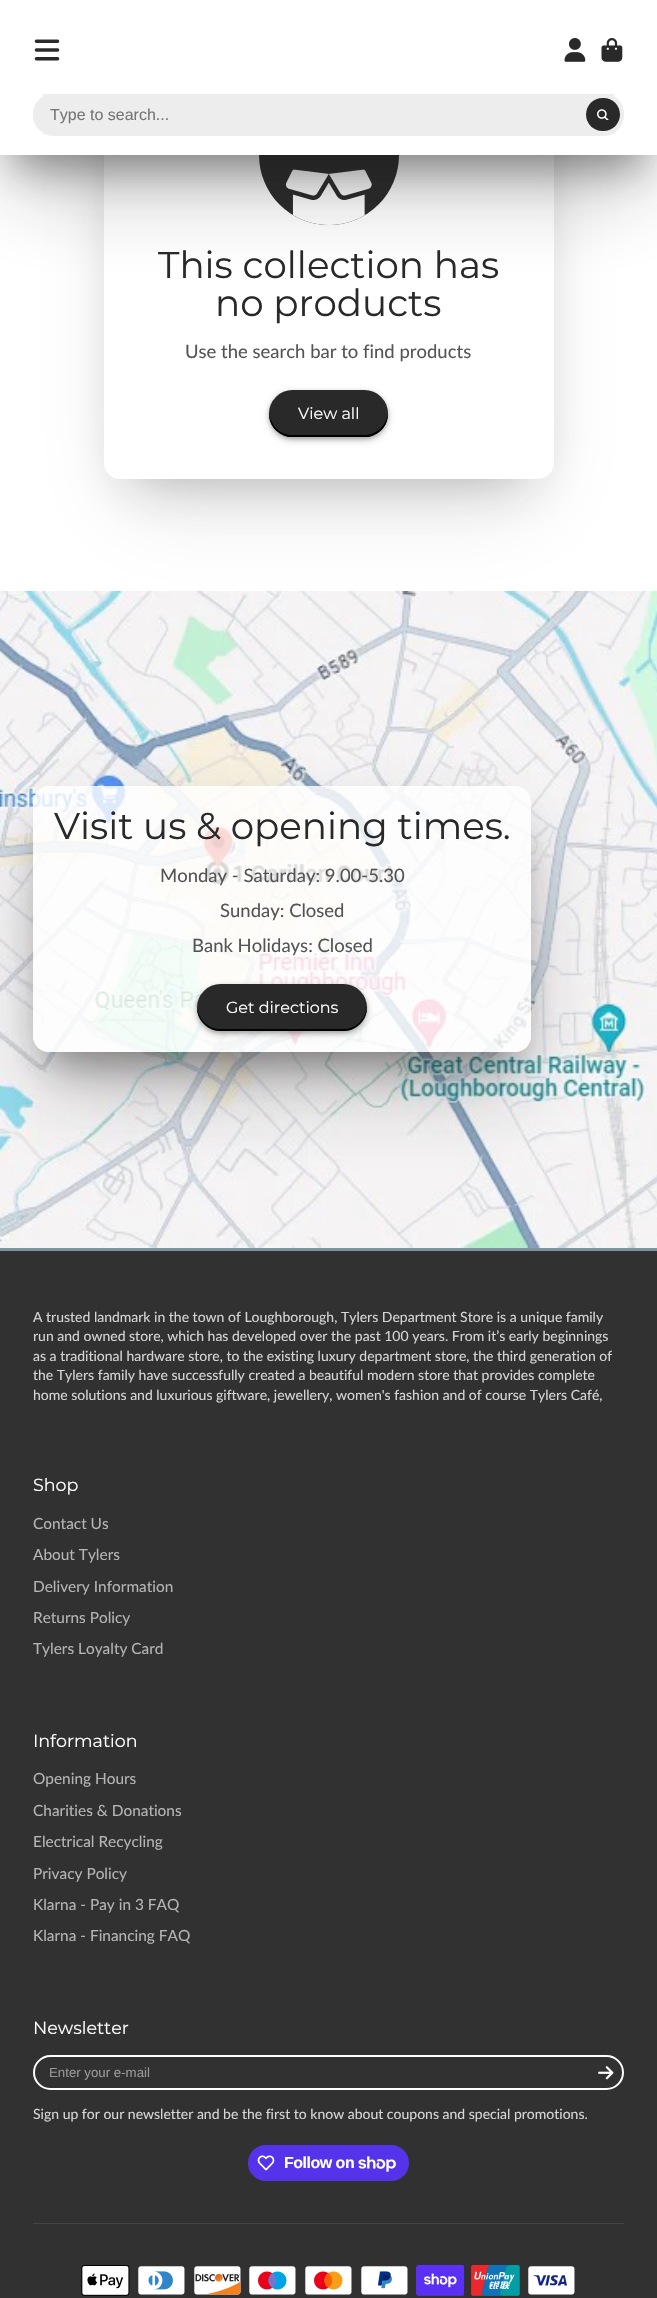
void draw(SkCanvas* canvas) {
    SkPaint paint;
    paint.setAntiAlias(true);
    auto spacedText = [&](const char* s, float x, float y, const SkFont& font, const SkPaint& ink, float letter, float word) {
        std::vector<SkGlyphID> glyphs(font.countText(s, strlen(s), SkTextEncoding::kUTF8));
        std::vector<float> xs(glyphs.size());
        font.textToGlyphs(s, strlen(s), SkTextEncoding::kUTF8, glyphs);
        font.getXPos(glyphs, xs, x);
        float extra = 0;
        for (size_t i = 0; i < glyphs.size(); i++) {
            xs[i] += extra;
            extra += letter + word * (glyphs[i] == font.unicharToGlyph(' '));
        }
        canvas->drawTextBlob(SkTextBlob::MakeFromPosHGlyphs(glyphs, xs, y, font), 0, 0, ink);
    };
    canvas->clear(0xFFFFFFFF);
    paint.setColor(0x4D1C1C1C);
    paint.setMaskFilter(SkMaskFilter::MakeBlur(kNormal_SkBlurStyle, 26));
    canvas->drawRect(SkRect::MakeXYWH(130, 96, 398, 383), paint);
    paint.setMaskFilter(nullptr);
    paint.setColor(0x1A1C1C1C);
    paint.setMaskFilter(SkMaskFilter::MakeBlur(kNormal_SkBlurStyle, 44));
    canvas->drawRect(SkRect::MakeXYWH(122, 104, 415, 401), paint);
    paint.setMaskFilter(nullptr);
    paint.setColor(0xFFFFFFFF);
    canvas->drawRoundRect(SkRect::MakeXYWH(104, 43, 450, 436), 16, 16, paint);
    paint.setColor(0xFF292929);
    canvas->drawCircle(329, 155, 70, paint);
    canvas->drawImageRect(SkImages::DeferredFromEncodedData(SkData::MakeFromFileName("img5.png")), SkRect::MakeXYWH(285, 169, 87, 56), SkSamplingOptions());
    paint.setColor(0x661C1C1C);
    paint.setMaskFilter(SkMaskFilter::MakeBlur(kNormal_SkBlurStyle, 19));
    canvas->drawRect(SkRect::MakeXYWH(14, 40, 629, 127), paint);
    paint.setMaskFilter(nullptr);
    paint.setColor(0x4D1C1C1C);
    paint.setMaskFilter(SkMaskFilter::MakeBlur(kNormal_SkBlurStyle, 44));
    canvas->drawRect(SkRect::MakeXYWH(14, 58, 629, 127), paint);
    paint.setMaskFilter(nullptr);
    paint.setColor(0xFFFFFFFF);
    canvas->drawRect(SkRect::MakeXYWH(0, 0, 657, 155), paint);
    canvas->drawImageRect(SkImages::DeferredFromEncodedData(SkData::MakeFromFileName("img1.png")), SkRect::MakeXYWH(34, 39, 26, 22), SkSamplingOptions());
    canvas->drawImageRect(SkImages::DeferredFromEncodedData(SkData::MakeFromFileName("img2.png")), SkRect::MakeXYWH(564, 38, 22, 24), SkSamplingOptions());
    canvas->drawImageRect(SkImages::DeferredFromEncodedData(SkData::MakeFromFileName("img3.png")), SkRect::MakeXYWH(601, 38, 22, 24), SkSamplingOptions());
    paint.setColor(0xFFEDEDED);
    canvas->drawRoundRect(SkRect::MakeXYWH(33, 94, 591, 40), 20, 20, paint);
    canvas->drawRect(SkRect::MakeXYWH(43, 94, 571, 40), paint);
    canvas->drawRoundRect(SkRect::MakeXYWH(33, 94, 591, 42), 21, 21, paint);
    SkFont font1(fontMgr->matchFamilyStyle("Liberation Sans", SkFontStyle::Normal()), 16);
    font1.setSubpixel(true);
    paint.setColor(0xFF757575);
    canvas->drawString("Type to search...", 50, 120, font1, paint);
    paint.setColor(0xFF292929);
    canvas->drawRoundRect(SkRect::MakeXYWH(586, 98, 34, 33), 16.5f, 16.5f, paint);
    canvas->drawImageRect(SkImages::DeferredFromEncodedData(SkData::MakeFromFileName("img4.png")), SkRect::MakeXYWH(597, 109, 12, 11), SkSamplingOptions());
    SkFont font2(fontMgr->matchFamilyStyle("Montserrat", SkFontStyle::Normal()), 37.25f);
    font2.setSubpixel(true);
    canvas->drawString("This collection has", 158, 278, font2, paint);
    canvas->drawString("no products", 215, 316, font2, paint);
    SkFont font3(fontMgr->matchFamilyStyle("Lato", SkFontStyle::Normal()), 18.5f);
    font3.setSubpixel(true);
    paint.setColor(0xFF545454);
    canvas->drawString("Use the search bar to find products", 185, 358, font3, paint);
    paint.setColor(0x26000000);
    paint.setMaskFilter(SkMaskFilter::MakeBlur(kNormal_SkBlurStyle, 5));
    canvas->drawRoundRect(SkRect::MakeXYWH(271, 397, 115, 42), 21, 21, paint);
    paint.setMaskFilter(nullptr);
    paint.setColor(0x4D000000);
    paint.setMaskFilter(SkMaskFilter::MakeBlur(kNormal_SkBlurStyle, 2.5f));
    canvas->drawRoundRect(SkRect::MakeXYWH(269, 392, 119, 47), 23.5f, 23.5f, paint);
    paint.setMaskFilter(nullptr);
    paint.setColor(0xFF292929);
    canvas->drawRoundRect(SkRect::MakeXYWH(269, 390, 119, 47), 23.5f, 23.5f, paint);
    paint.setColor(0xFF000000);
    canvas->drawPath(SkPathBuilder().moveTo(269, 412).cubicTo(268, 424, 276, 434, 288, 437).lineTo(304, 437).lineTo(352, 437).lineTo(369, 437).cubicTo(381, 434, 389, 424, 388, 412).cubicTo(387, 425, 377, 435, 364, 435).lineTo(292, 435).cubicTo(280, 435, 270, 425, 269, 412).close().detach(), paint);
    SkFont font4(fontMgr->matchFamilyStyle("Montserrat", SkFontStyle::Normal()), 16);
    font4.setSubpixel(true);
    paint.setColor(0xFFFFFFFF);
    canvas->drawString("View all", 298, 419, font4, paint);
    canvas->drawImageRect(SkImages::DeferredFromEncodedData(SkData::MakeFromFileName("img6.png")), SkRect::MakeXYWH(0, 591, 657, 657), SkSamplingOptions());
    canvas->save();
    canvas->clipPath(SkPathBuilder(SkPathFillType::kEvenOdd).moveTo(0, 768).lineTo(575, 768).lineTo(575, 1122).lineTo(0, 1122).close().moveTo(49, 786).lineTo(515, 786).cubicTo(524, 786, 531, 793, 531, 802).lineTo(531, 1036).cubicTo(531, 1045, 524, 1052, 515, 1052).lineTo(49, 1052).cubicTo(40, 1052, 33, 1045, 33, 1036).lineTo(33, 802).cubicTo(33, 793, 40, 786, 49, 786).close().detach(), true);
    paint.setColor(0x661C1C1C);
    paint.setMaskFilter(SkMaskFilter::MakeBlur(kNormal_SkBlurStyle, 19));
    canvas->drawRoundRect(SkRect::MakeXYWH(47, 826, 470, 238), 2, 2, paint);
    paint.setMaskFilter(nullptr);
    canvas->restore();
    canvas->save();
    canvas->clipPath(SkPathBuilder(SkPathFillType::kEvenOdd).moveTo(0, 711).lineTo(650, 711).lineTo(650, 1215).lineTo(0, 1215).close().moveTo(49, 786).lineTo(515, 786).cubicTo(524, 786, 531, 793, 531, 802).lineTo(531, 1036).cubicTo(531, 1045, 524, 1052, 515, 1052).lineTo(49, 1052).cubicTo(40, 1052, 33, 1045, 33, 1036).lineTo(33, 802).cubicTo(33, 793, 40, 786, 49, 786).close().detach(), true);
    paint.setColor(0x4D1C1C1C);
    paint.setMaskFilter(SkMaskFilter::MakeBlur(kNormal_SkBlurStyle, 44));
    canvas->drawRoundRect(SkRect::MakeXYWH(47, 844, 470, 238), 2, 2, paint);
    paint.setMaskFilter(nullptr);
    canvas->restore();
    paint.setColor(0xCCFFFFFF);
    canvas->drawRoundRect(SkRect::MakeXYWH(33, 786, 498, 266), 16, 16, paint);
    paint.setColor(0xFF292929);
    canvas->drawString("Visit us & opening times.", 54, 839, font2, paint);
    paint.setColor(0xFF545454);
    canvas->drawString("Monday - Saturday: 9.00-5.30", 160, 882, font3, paint);
    canvas->drawString("Sunday: Closed", 220, 917, font3, paint);
    canvas->drawString("Bank Holidays: Closed", 192, 952, font3, paint);
    paint.setColor(0x26000000);
    paint.setMaskFilter(SkMaskFilter::MakeBlur(kNormal_SkBlurStyle, 5));
    canvas->drawRoundRect(SkRect::MakeXYWH(199, 991, 166, 42), 21, 21, paint);
    paint.setMaskFilter(nullptr);
    paint.setColor(0x4D000000);
    paint.setMaskFilter(SkMaskFilter::MakeBlur(kNormal_SkBlurStyle, 2.5f));
    canvas->drawRoundRect(SkRect::MakeXYWH(197, 986, 170, 47), 23.5f, 23.5f, paint);
    paint.setMaskFilter(nullptr);
    paint.setColor(0xFF292929);
    canvas->drawRoundRect(SkRect::MakeXYWH(197, 984, 170, 47), 23.5f, 23.5f, paint);
    paint.setColor(0xFF000000);
    canvas->drawPath(SkPathBuilder().moveTo(197, 1006).lineTo(197, 1008).cubicTo(197, 1020, 208, 1031, 220, 1031).lineTo(344, 1031).cubicTo(356, 1031, 367, 1020, 367, 1008).lineTo(367, 1006).cubicTo(366, 1019, 356, 1029, 344, 1029).lineTo(220, 1029).cubicTo(208, 1029, 198, 1019, 197, 1006).close().detach(), paint);
    paint.setColor(0xFFFFFFFF);
    canvas->drawString("Get directions", 226, 1013, font4, paint);
    paint.setColor(0xFF313131);
    canvas->drawRect(SkRect::MakeXYWH(0, 1251, 657, 1047), paint);
    paint.setColor(0xFF7D959F);
    canvas->drawRect(SkRect::MakeXYWH(0, 1248, 657, 3), paint);
    SkFont font5(fontMgr->matchFamilyStyle("Lato", SkFontStyle::Normal()), 14);
    font5.setSubpixel(true);
    paint.setColor(0xFFD6D6D6);
    canvas->drawString("A trusted landmark in the town of Loughborough, Tylers Department Store is a unique family", 33, 1322, font5, paint);
    canvas->drawString("run and owned store, which has developed over the past 100 years. From it’s early beginnings", 33, 1341, font5, paint);
    canvas->drawString("as a traditional hardware store, to the existing luxury department store, the third generation of", 33, 1361, font5, paint);
    canvas->drawString("the Tylers family have successfully created a beautiful modern store that provides complete", 33, 1380, font5, paint);
    canvas->drawString("home solutions and luxurious giftware, jewellery, women's fashion and of course Tylers Café,", 33, 1400, font5, paint);
    SkFont font6(fontMgr->matchFamilyStyle("Montserrat", SkFontStyle::Normal()), 17.5f);
    font6.setSubpixel(true);
    paint.setColor(0xFFFFFFFF);
    canvas->drawString("Shop", 33, 1491, font6, paint);
    SkFont font7(fontMgr->matchFamilyStyle("Lato", SkFontStyle::Normal()), 15.4f);
    font7.setSubpixel(true);
    paint.setColor(0xFFB5B5B5);
    canvas->drawString("Contact Us", 33, 1529, font7, paint);
    canvas->drawString("About Tylers", 33, 1560, font7, paint);
    canvas->drawString("Delivery Information", 33, 1592, font7, paint);
    canvas->drawString("Returns Policy", 33, 1623, font7, paint);
    canvas->drawString("Tylers Loyalty Card", 33, 1654, font7, paint);
    paint.setColor(0xFFFFFFFF);
    canvas->drawString("Information", 33, 1747, font6, paint);
    paint.setColor(0xFFB5B5B5);
    canvas->drawString("Opening Hours", 33, 1784, font7, paint);
    canvas->drawString("Charities & Donations", 33, 1816, font7, paint);
    canvas->drawString("Electrical Recycling", 33, 1847, font7, paint);
    canvas->drawString("Privacy Policy", 33, 1879, font7, paint);
    canvas->drawString("Klarna - Pay in 3 FAQ", 33, 1910, font7, paint);
    canvas->drawString("Klarna - Financing FAQ", 33, 1941, font7, paint);
    paint.setColor(0xFFFFFFFF);
    canvas->drawString("Newsletter", 33, 2034, font6, paint);
    paint.setStyle(SkPaint::kStroke_Style);
    paint.setStrokeWidth(2);
    canvas->drawRoundRect(SkRect::MakeXYWH(34, 2056, 589, 33), 16.5f, 16.5f, paint);
    SkFont font8(fontMgr->matchFamilyStyle("Liberation Sans", SkFontStyle::Normal()), 13.25f);
    font8.setSubpixel(true);
    paint.setStyle(SkPaint::kFill_Style);
    paint.setColor(0xFF989898);
    canvas->drawString("Enter your e-mail", 49, 2077, font8, paint);
    canvas->drawImageRect(SkImages::DeferredFromEncodedData(SkData::MakeFromFileName("img7.png")), SkRect::MakeXYWH(598, 2066, 16, 14), SkSamplingOptions());
    paint.setColor(0xFFD6D6D6);
    canvas->drawString("Sign up for our newsletter and be the first to know about coupons and special promotions.", 33, 2119, font5, paint);
    paint.setColor(0xFF5433EB);
    canvas->drawRoundRect(SkRect::MakeXYWH(248, 2145, 161, 36), 18, 18, paint);
    canvas->drawImageRect(SkImages::DeferredFromEncodedData(SkData::MakeFromFileName("img8.png")), SkRect::MakeXYWH(257, 2155, 18, 16), SkSamplingOptions());
    SkFont font9(fontMgr->matchFamilyStyle("Liberation Sans", SkFontStyle::Bold()), 16);
    font9.setSubpixel(true);
    paint.setColor(0xFFFFFFFF);
    spacedText("Follow on", 284, 2168, font9, paint, -0.5f, 0);
    canvas->drawImageRect(SkImages::DeferredFromEncodedData(SkData::MakeFromFileName("img9.png")), SkRect::MakeXYWH(358, 2156, 38, 16), SkSamplingOptions());
    paint.setColor(0xFF464646);
    canvas->drawRect(SkRect::MakeXYWH(33, 2223, 591, 1), paint);
    canvas->drawImageRect(SkImages::DeferredFromEncodedData(SkData::MakeFromFileName("img10.png")), SkRect::MakeXYWH(81, 2265, 49, 31), SkSamplingOptions());
    canvas->drawImageRect(SkImages::DeferredFromEncodedData(SkData::MakeFromFileName("img11.png")), SkRect::MakeXYWH(138, 2266, 47, 29), SkSamplingOptions());
    canvas->drawImageRect(SkImages::DeferredFromEncodedData(SkData::MakeFromFileName("img12.png")), SkRect::MakeXYWH(194, 2266, 47, 29), SkSamplingOptions());
    canvas->drawImageRect(SkImages::DeferredFromEncodedData(SkData::MakeFromFileName("img13.png")), SkRect::MakeXYWH(249, 2266, 47, 29), SkSamplingOptions());
    canvas->drawImageRect(SkImages::DeferredFromEncodedData(SkData::MakeFromFileName("img14.png")), SkRect::MakeXYWH(305, 2266, 47, 29), SkSamplingOptions());
    canvas->drawImageRect(SkImages::DeferredFromEncodedData(SkData::MakeFromFileName("img15.png")), SkRect::MakeXYWH(361, 2266, 47, 29), SkSamplingOptions());
    canvas->drawImageRect(SkImages::DeferredFromEncodedData(SkData::MakeFromFileName("img16.png")), SkRect::MakeXYWH(416, 2265, 48, 31), SkSamplingOptions());
    canvas->drawImageRect(SkImages::DeferredFromEncodedData(SkData::MakeFromFileName("img17.png")), SkRect::MakeXYWH(471, 2265, 49, 31), SkSamplingOptions());
    canvas->drawImageRect(SkImages::DeferredFromEncodedData(SkData::MakeFromFileName("img18.png")), SkRect::MakeXYWH(528, 2266, 47, 29), SkSamplingOptions());
}
